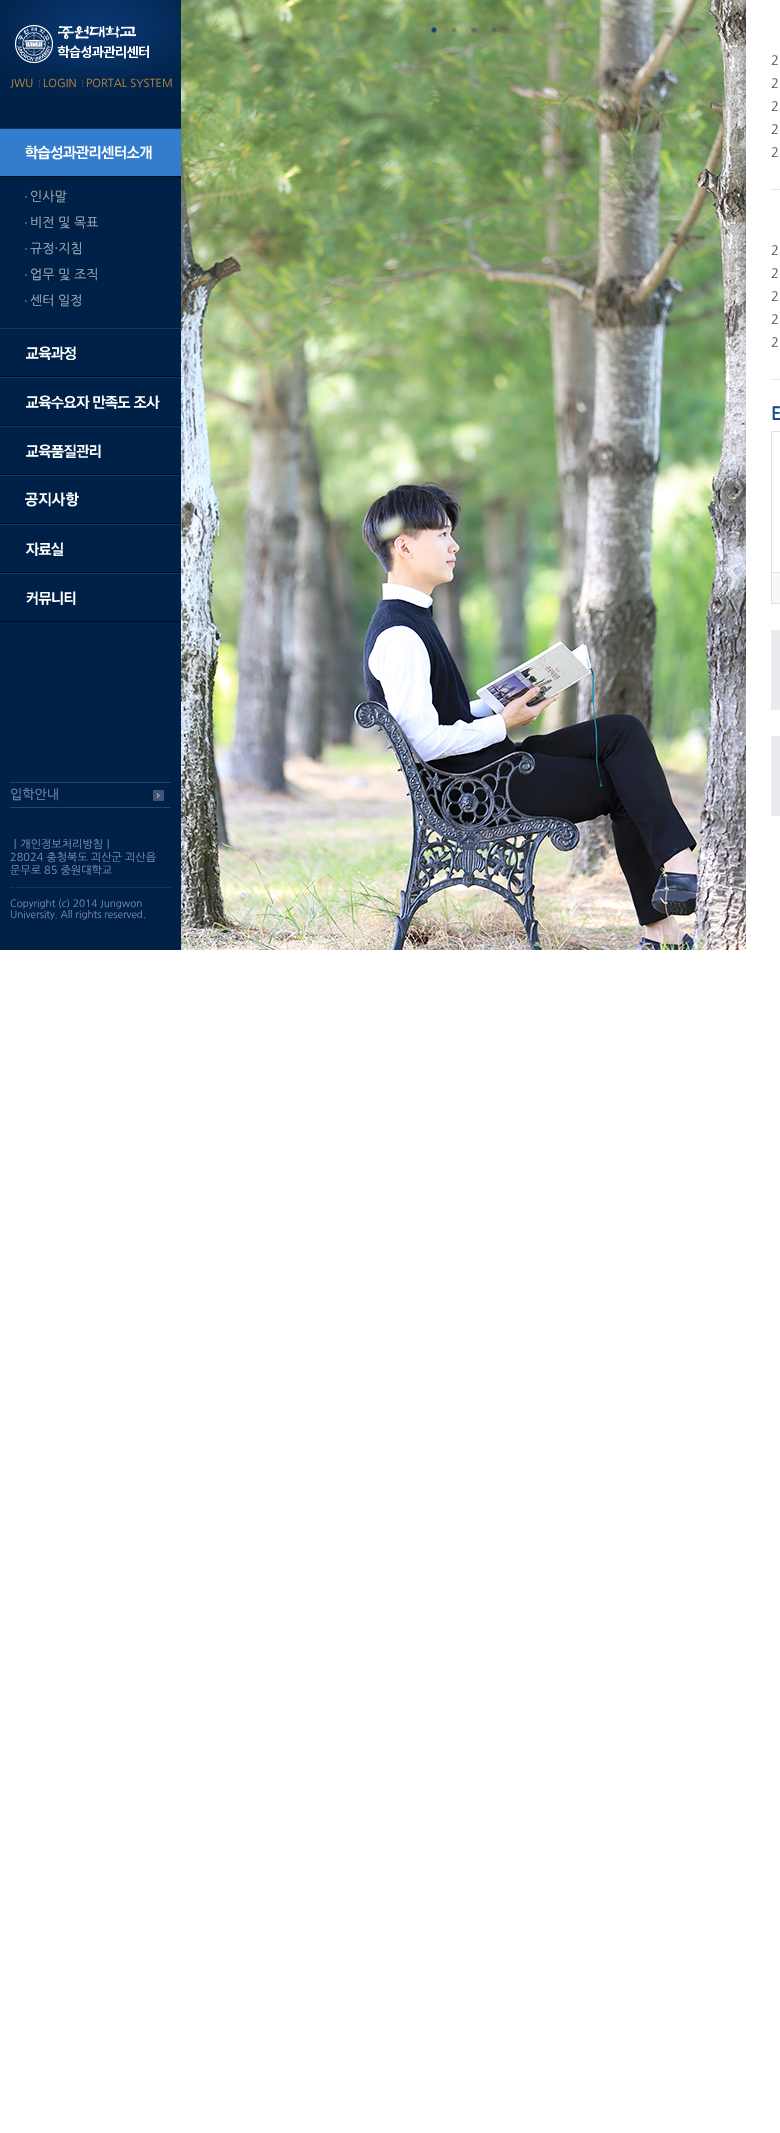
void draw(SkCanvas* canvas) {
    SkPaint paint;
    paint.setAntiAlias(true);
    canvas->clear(0xFFFFFFFF);
    paint.setColor(0xFF002147);
    canvas->drawRect(SkRect::MakeXYWH(0, 95, 181, 855), paint);
    paint.setColor(0xFF337DCC);
    canvas->drawRect(SkRect::MakeXYWH(0, 129, 181, 47), paint);
    paint.setColor(0xFF133464);
    canvas->drawRect(SkRect::MakeXYWH(0, 128, 181, 1), paint);
    paint.setColor(0xFF000C19);
    canvas->drawRect(SkRect::MakeXYWH(0, 176, 181, 1), paint);
    canvas->drawImageRect(SkImages::DeferredFromEncodedData(SkData::MakeFromFileName("img1.png")), SkRect::MakeXYWH(25, 145, 127, 15), SkSamplingOptions());
    paint.setColor(0xFF415873);
    canvas->drawRect(SkRect::MakeXYWH(25, 196, 2, 2), paint);
    SkFont font1(fontMgr->matchFamilyStyle("NanumGothic", SkFontStyle::Normal()), 13);
    font1.setSubpixel(true);
    paint.setColor(0xFFA2AAB4);
    canvas->drawString("인사말", 30, 201, font1, paint);
    paint.setColor(0xFF415873);
    canvas->drawRect(SkRect::MakeXYWH(25, 222, 2, 2), paint);
    paint.setColor(0xFFA2AAB4);
    canvas->drawString("비전 및 목표", 30, 227, font1, paint);
    paint.setColor(0xFF415873);
    canvas->drawRect(SkRect::MakeXYWH(25, 248, 2, 2), paint);
    paint.setColor(0xFFA2AAB4);
    canvas->drawString("규정·지침", 30, 253, font1, paint);
    paint.setColor(0xFF415873);
    canvas->drawRect(SkRect::MakeXYWH(25, 274, 2, 2), paint);
    paint.setColor(0xFFA2AAB4);
    canvas->drawString("업무 및 조직", 30, 279, font1, paint);
    paint.setColor(0xFF415873);
    canvas->drawRect(SkRect::MakeXYWH(25, 300, 2, 2), paint);
    paint.setColor(0xFFA2AAB4);
    canvas->drawString("센터 일정", 30, 305, font1, paint);
    paint.setColor(0xFF133464);
    canvas->drawRect(SkRect::MakeXYWH(0, 328, 181, 1), paint);
    paint.setColor(0xFF000C19);
    canvas->drawRect(SkRect::MakeXYWH(0, 376, 181, 1), paint);
    canvas->drawImageRect(SkImages::DeferredFromEncodedData(SkData::MakeFromFileName("img2.png")), SkRect::MakeXYWH(26, 346, 50, 14), SkSamplingOptions());
    paint.setColor(0xFF133464);
    canvas->drawRect(SkRect::MakeXYWH(0, 377, 181, 1), paint);
    paint.setColor(0xFF000C19);
    canvas->drawRect(SkRect::MakeXYWH(0, 425, 181, 1), paint);
    canvas->drawImageRect(SkImages::DeferredFromEncodedData(SkData::MakeFromFileName("img3.png")), SkRect::MakeXYWH(26, 395, 134, 14), SkSamplingOptions());
    paint.setColor(0xFF133464);
    canvas->drawRect(SkRect::MakeXYWH(0, 426, 181, 1), paint);
    paint.setColor(0xFF000C19);
    canvas->drawRect(SkRect::MakeXYWH(0, 474, 181, 1), paint);
    canvas->drawImageRect(SkImages::DeferredFromEncodedData(SkData::MakeFromFileName("img4.png")), SkRect::MakeXYWH(26, 444, 75, 14), SkSamplingOptions());
    paint.setColor(0xFF133464);
    canvas->drawRect(SkRect::MakeXYWH(0, 475, 181, 1), paint);
    paint.setColor(0xFF000C19);
    canvas->drawRect(SkRect::MakeXYWH(0, 523, 181, 1), paint);
    canvas->drawImageRect(SkImages::DeferredFromEncodedData(SkData::MakeFromFileName("img5.png")), SkRect::MakeXYWH(25, 492, 54, 15), SkSamplingOptions());
    paint.setColor(0xFF133464);
    canvas->drawRect(SkRect::MakeXYWH(0, 524, 181, 1), paint);
    paint.setColor(0xFF000C19);
    canvas->drawRect(SkRect::MakeXYWH(0, 572, 181, 1), paint);
    canvas->drawImageRect(SkImages::DeferredFromEncodedData(SkData::MakeFromFileName("img6.png")), SkRect::MakeXYWH(25, 542, 38, 14), SkSamplingOptions());
    paint.setColor(0xFF133464);
    canvas->drawRect(SkRect::MakeXYWH(0, 573, 181, 1), paint);
    paint.setColor(0xFF000C19);
    canvas->drawRect(SkRect::MakeXYWH(0, 621, 181, 1), paint);
    canvas->drawImageRect(SkImages::DeferredFromEncodedData(SkData::MakeFromFileName("img7.png")), SkRect::MakeXYWH(26, 591, 50, 14), SkSamplingOptions());
    canvas->drawImageRect(SkImages::DeferredFromEncodedData(SkData::MakeFromFileName("img8.png")), SkRect::MakeXYWH(181, 0, 565, 950), SkSamplingOptions());
    canvas->drawImageRect(SkImages::DeferredFromEncodedData(SkData::MakeFromFileName("img9.png")), SkRect::MakeXYWH(431, 27, 6, 6), SkSamplingOptions());
    canvas->drawImageRect(SkImages::DeferredFromEncodedData(SkData::MakeFromFileName("img10.png")), SkRect::MakeXYWH(451, 27, 6, 6), SkSamplingOptions());
    canvas->drawImageRect(SkImages::DeferredFromEncodedData(SkData::MakeFromFileName("img11.png")), SkRect::MakeXYWH(471, 27, 6, 6), SkSamplingOptions());
    canvas->drawImageRect(SkImages::DeferredFromEncodedData(SkData::MakeFromFileName("img12.png")), SkRect::MakeXYWH(491, 27, 6, 6), SkSamplingOptions());
    paint.setColor(0xFFE5E5E5);
    canvas->drawRect(SkRect::MakeXYWH(771, 189, 9, 1), paint);
    paint.setColor(0xFF545454);
    canvas->drawString("2", 771, 65, font1, paint);
    canvas->drawString("2", 771, 88, font1, paint);
    canvas->drawString("2", 771, 111, font1, paint);
    canvas->drawString("2", 771, 134, font1, paint);
    canvas->drawString("2", 771, 157, font1, paint);
    paint.setColor(0xFFE5E5E5);
    canvas->drawRect(SkRect::MakeXYWH(771, 379, 9, 1), paint);
    paint.setColor(0xFF545454);
    canvas->drawString("2", 771, 255, font1, paint);
    canvas->drawString("2", 771, 278, font1, paint);
    canvas->drawString("2", 771, 301, font1, paint);
    canvas->drawString("2", 771, 324, font1, paint);
    canvas->drawString("2", 771, 347, font1, paint);
    SkFont font2(fontMgr->matchFamilyStyle("NanumGothic", SkFontStyle::Bold()), 18);
    font2.setSubpixel(true);
    paint.setColor(0xFF154A90);
    canvas->drawString("E", 771, 419, font2, paint);
    paint.setColor(0xFFE1E1E1);
    canvas->drawRect(SkRect::MakeXYWH(771, 603, 9, 1), paint);
    paint.setStyle(SkPaint::kStroke_Style);
    paint.setStrokeWidth(1);
    canvas->drawRect(SkRect::MakeXYWH(771.5f, 431.5f, 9, 141), paint);
    paint.setStyle(SkPaint::kFill_Style);
    paint.setColor(0xFFF8F8F8);
    canvas->drawRect(SkRect::MakeXYWH(772, 573, 8, 30), paint);
    paint.setColor(0xFFE1E1E1);
    canvas->drawRect(SkRect::MakeXYWH(771, 573, 1, 30), paint);
    paint.setColor(0xFFE9EBEE);
    canvas->drawRect(SkRect::MakeXYWH(771, 630, 9, 80), paint);
    canvas->drawRect(SkRect::MakeXYWH(771, 736, 9, 80), paint);
    canvas->drawImageRect(SkImages::DeferredFromEncodedData(SkData::MakeFromFileName("img13.png")), SkRect::MakeXYWH(0, 0, 181, 95), SkSamplingOptions());
    canvas->drawImageRect(SkImages::DeferredFromEncodedData(SkData::MakeFromFileName("img14.png")), SkRect::MakeXYWH(15, 25, 134, 38), SkSamplingOptions());
    SkFont font3(fontMgr->matchFamilyStyle("NanumGothic", SkFontStyle::Normal()), 11);
    font3.setSubpixel(true);
    paint.setColor(0xFFBB8732);
    canvas->drawString("JWU", 10, 87, font3, paint);
    canvas->drawImageRect(SkImages::DeferredFromEncodedData(SkData::MakeFromFileName("img15.png")), SkRect::MakeXYWH(39, 80, 1, 7), SkSamplingOptions());
    canvas->drawString("LOGIN", 43, 87, font3, paint);
    canvas->drawImageRect(SkImages::DeferredFromEncodedData(SkData::MakeFromFileName("img16.png")), SkRect::MakeXYWH(82, 80, 1, 7), SkSamplingOptions());
    canvas->drawString("PORTAL SYSTEM", 86, 87, font3, paint);
    paint.setColor(0xFF294071);
    canvas->drawRect(SkRect::MakeXYWH(10, 782, 161, 1), paint);
    canvas->drawRect(SkRect::MakeXYWH(10, 807, 161, 1), paint);
    canvas->drawImageRect(SkImages::DeferredFromEncodedData(SkData::MakeFromFileName("img17.png")), SkRect::MakeXYWH(153, 790, 11, 11), SkSamplingOptions());
    paint.setColor(0xFF778AAB);
    canvas->drawString("입학안내", 10, 799, font1, paint);
    canvas->drawString("ㅣ개인정보처리방침ㅣ", 10, 848, font3, paint);
    canvas->drawString("28024 충청북도 괴산군 괴산읍", 10, 861, font3, paint);
    canvas->drawString("문무로 85 중원대학교", 10, 874, font3, paint);
    paint.setStyle(SkPaint::kStroke_Style);
    paint.setColor(0xFF294071);
    paint.setPathEffect(SkDashPathEffect::Make({{1, 1}}, 0));
    canvas->drawPath(SkPathBuilder().moveTo(10, 887.5f).lineTo(171, 887.5f).detach(), paint);
    paint.setPathEffect(nullptr);
    SkFont font4(fontMgr->matchFamilyStyle("NanumGothic", SkFontStyle::Normal()), 10);
    font4.setSubpixel(true);
    paint.setStyle(SkPaint::kFill_Style);
    paint.setColor(0xFF778AAB);
    canvas->drawString("Copyright (c) 2014 Jungwon", 10, 907, font4, paint);
    canvas->drawString("University. All rights reserved.", 10, 918, font4, paint);
}
